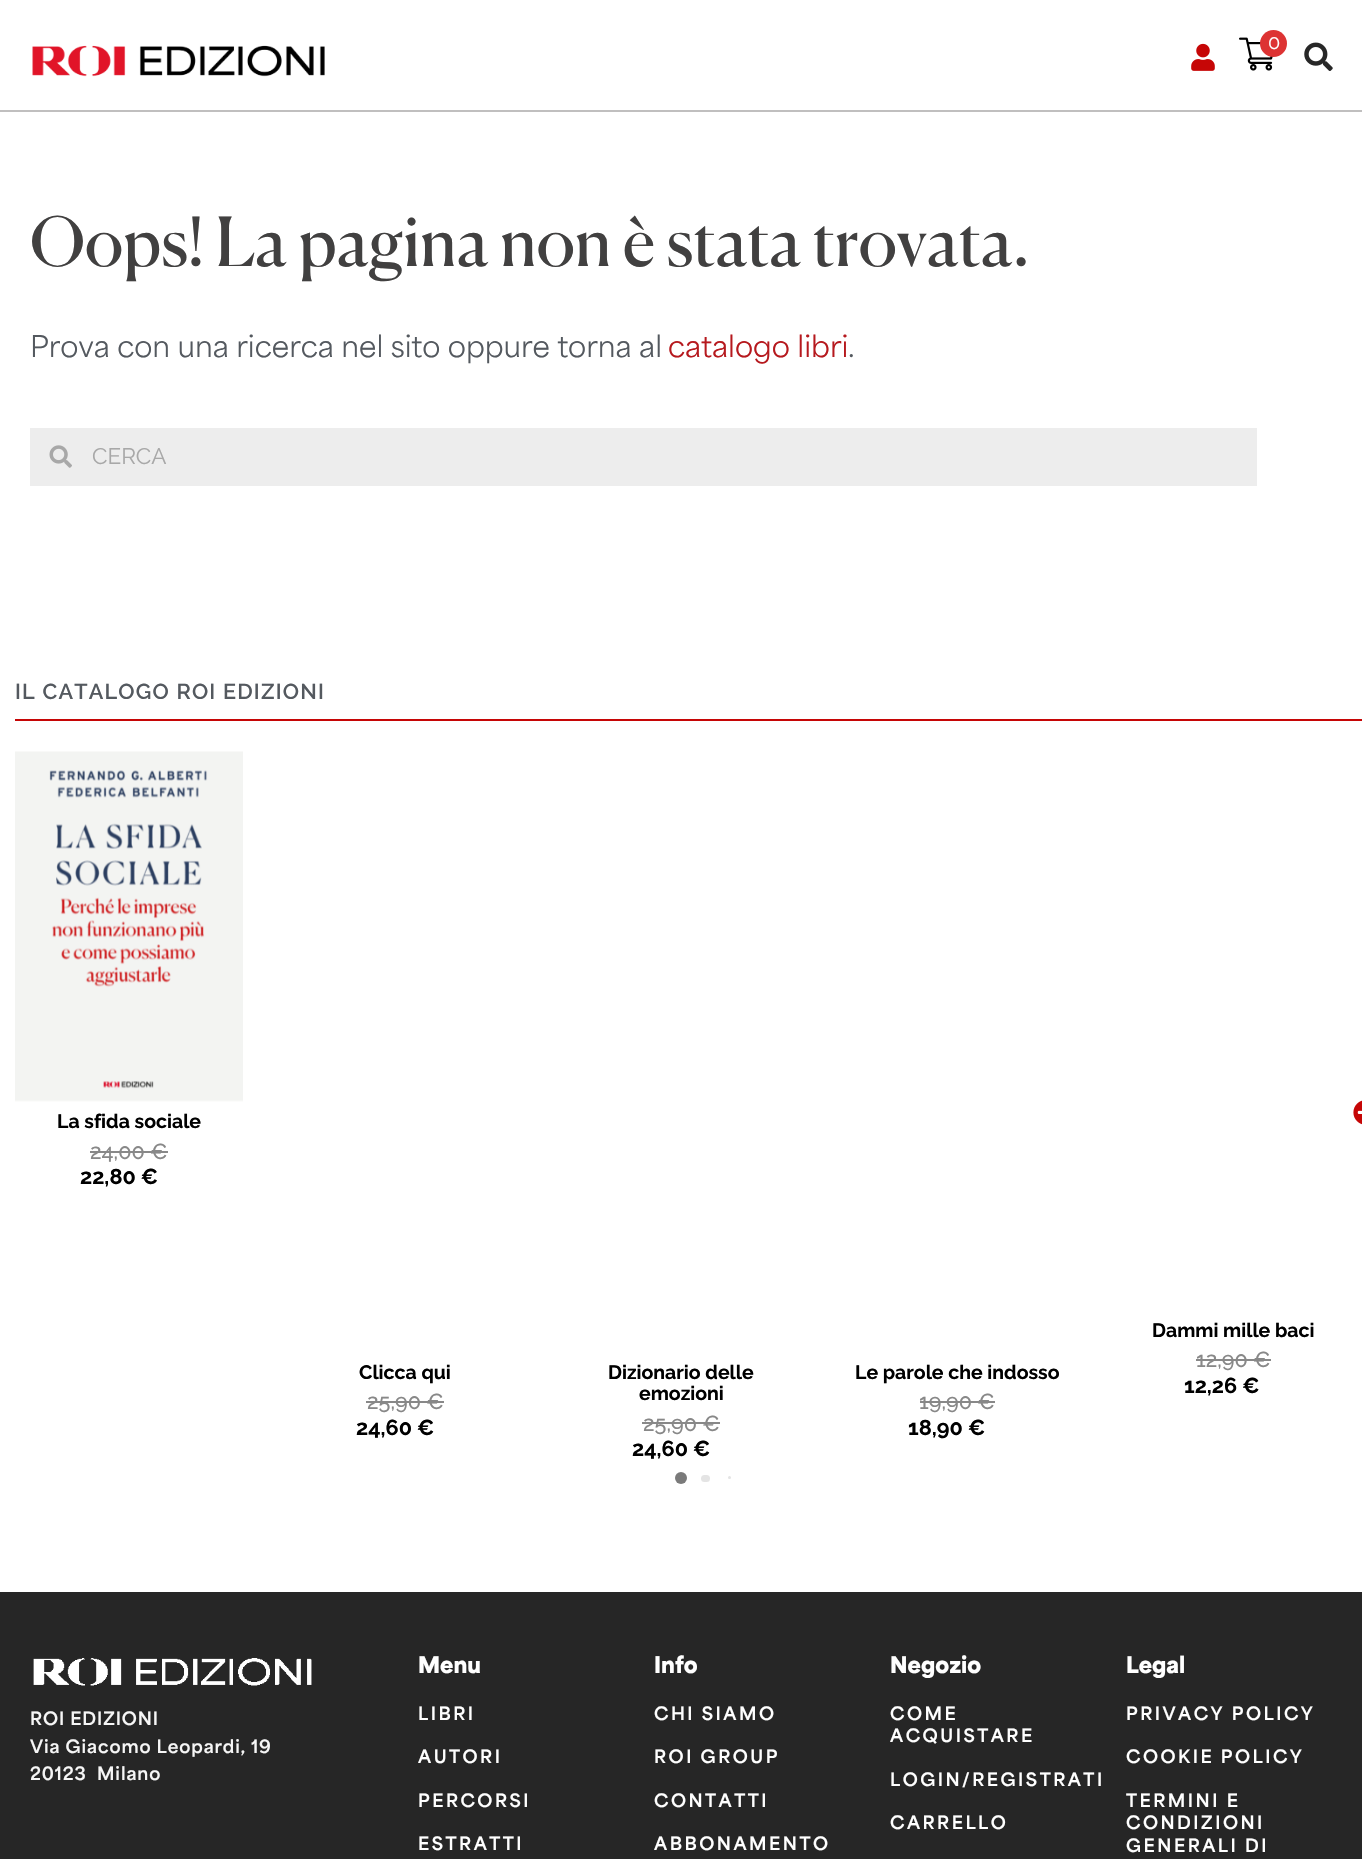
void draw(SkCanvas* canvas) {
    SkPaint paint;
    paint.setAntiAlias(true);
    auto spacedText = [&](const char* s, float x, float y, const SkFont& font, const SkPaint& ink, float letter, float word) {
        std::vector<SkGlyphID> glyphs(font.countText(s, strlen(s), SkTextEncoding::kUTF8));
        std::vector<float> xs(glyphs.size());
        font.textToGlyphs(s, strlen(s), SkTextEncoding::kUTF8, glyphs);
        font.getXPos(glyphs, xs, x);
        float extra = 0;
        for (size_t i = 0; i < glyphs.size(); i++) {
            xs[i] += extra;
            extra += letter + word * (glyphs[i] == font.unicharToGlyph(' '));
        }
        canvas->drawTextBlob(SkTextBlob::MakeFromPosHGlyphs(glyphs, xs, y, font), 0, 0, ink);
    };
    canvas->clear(0xFFFFFFFF);
    paint.setColor(0xFFC0BFBF);
    canvas->drawRect(SkRect::MakeXYWH(0, 110, 1362, 2), paint);
    canvas->drawImageRect(SkImages::DeferredFromEncodedData(SkData::MakeFromFileName("img1.png")), SkRect::MakeXYWH(1191, 43, 24, 28), SkSamplingOptions());
    canvas->drawImageRect(SkImages::DeferredFromEncodedData(SkData::MakeFromFileName("img2.png")), SkRect::MakeXYWH(1239, 37, 34, 34), SkSamplingOptions());
    paint.setColor(0xFFDD3333);
    canvas->drawCircle(1273.5f, 43.5f, 13.5f, paint);
    SkFont font1(fontMgr->matchFamilyStyle("Raleway", SkFontStyle::Normal()), 20);
    font1.setSubpixel(true);
    paint.setColor(0xFFFFFFFF);
    canvas->drawString("0", 1268, 49, font1, paint);
    canvas->drawImageRect(SkImages::DeferredFromEncodedData(SkData::MakeFromFileName("img3.png")), SkRect::MakeXYWH(1304, 42, 29, 29), SkSamplingOptions());
    canvas->drawImageRect(SkImages::DeferredFromEncodedData(SkData::MakeFromFileName("img4.png")), SkRect::MakeXYWH(32, 45, 293, 32), SkSamplingOptions());
    SkFont font2(fontMgr->matchFamilyStyle("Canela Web", SkFontStyle::Normal()), 67.5f);
    font2.setSubpixel(true);
    paint.setColor(0xFF414040);
    canvas->drawString("Oops! La pagina non è stata trovata.", 30, 266, font2, paint);
    SkFont font3(fontMgr->matchFamilyStyle("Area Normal", SkFontStyle::Normal()), 28.1f);
    font3.setSubpixel(true);
    paint.setColor(0xFF54595F);
    canvas->drawString("Prova con una ricerca nel sito oppure torna al", 30, 357, font3, paint);
    paint.setColor(0xFFB6191E);
    canvas->drawString("catalogo libri", 668, 357, font3, paint);
    paint.setColor(0xFF54595F);
    canvas->drawString(".", 848, 357, font3, paint);
    paint.setColor(0xFFEDEDED);
    canvas->drawRect(SkRect::MakeXYWH(30, 428, 1227, 58), paint);
    canvas->drawImageRect(SkImages::DeferredFromEncodedData(SkData::MakeFromFileName("img5.png")), SkRect::MakeXYWH(49, 445, 23, 23), SkSamplingOptions());
    SkFont font4(fontMgr->matchFamilyStyle("Raleway", SkFontStyle::Normal()), 22.5f);
    font4.setSubpixel(true);
    paint.setColor(0xFFA8A8A8);
    canvas->drawString("CERCA", 92, 464, font4, paint);
    SkFont font5(fontMgr->matchFamilyStyle("Raleway", SkFontStyle(600, SkFontStyle::kNormal_Width, SkFontStyle::kUpright_Slant)), 21.6f);
    font5.setSubpixel(true);
    paint.setColor(0xFF54595F);
    spacedText("IL CATALOGO ROI EDIZIONI", 15, 699, font5, paint, 1.2f, 0);
    paint.setColor(0xFFC60606);
    canvas->drawRect(SkRect::MakeXYWH(15, 719, 1347, 2), paint);
    canvas->drawImageRect(SkImages::DeferredFromEncodedData(SkData::MakeFromFileName("img6.png")), SkRect::MakeXYWH(1353, 1100, 9, 25), SkSamplingOptions());
    paint.setColor(0xFF7A7A7A);
    canvas->drawCircle(681, 1478, 6, paint);
    paint.setColor(0xFFE4E4E4);
    canvas->drawRoundRect(SkRect::MakeXYWH(701, 1475, 9, 7), 3.5f, 3.5f, paint);
    canvas->drawCircle(729.5f, 1477.5f, 1.5f, paint);
    canvas->drawImageRect(SkImages::DeferredFromEncodedData(SkData::MakeFromFileName("img7.png")), SkRect::MakeXYWH(15, 751, 228, 351), SkSamplingOptions());
    SkFont font6(fontMgr->matchFamilyStyle("Raleway", SkFontStyle::Bold()), 19.5f);
    font6.setSubpixel(true);
    paint.setColor(0xFF000000);
    canvas->drawString("La sfida sociale", 57, 1128, font6, paint);
    SkFont font7(fontMgr->matchFamilyStyle("Raleway", SkFontStyle(500, SkFontStyle::kNormal_Width, SkFontStyle::kUpright_Slant)), 21.6f);
    font7.setSubpixel(true);
    paint.setColor(0xFF888888);
    canvas->drawString("24,00 €", 90, 1159, font7, paint);
    canvas->drawRect(SkRect::MakeXYWH(90, 1151, 78, 2), paint);
    SkFont font8(fontMgr->matchFamilyStyle("Raleway", SkFontStyle::Bold()), 21.6f);
    font8.setSubpixel(true);
    paint.setColor(0xFF000000);
    canvas->drawString("22,80 €", 80, 1184, font8, paint);
    canvas->drawString("Clicca qui", 359, 1379, font6, paint);
    paint.setColor(0xFF888888);
    canvas->drawString("25,90 €", 367, 1409, font7, paint);
    canvas->drawRect(SkRect::MakeXYWH(366, 1401, 78, 2), paint);
    paint.setColor(0xFF000000);
    canvas->drawString("24,60 €", 356, 1435, font8, paint);
    canvas->drawString("Dizionario delle", 608, 1379, font6, paint);
    canvas->drawString("emozioni", 639, 1400, font6, paint);
    paint.setColor(0xFF888888);
    canvas->drawString("25,90 €", 643, 1431, font7, paint);
    canvas->drawRect(SkRect::MakeXYWH(642, 1422, 78, 2), paint);
    paint.setColor(0xFF000000);
    canvas->drawString("24,60 €", 632, 1456, font8, paint);
    canvas->drawString("Le parole che indosso", 855, 1379, font6, paint);
    paint.setColor(0xFF888888);
    canvas->drawString("19,90 €", 919, 1409, font7, paint);
    canvas->drawRect(SkRect::MakeXYWH(920, 1401, 75, 2), paint);
    paint.setColor(0xFF000000);
    canvas->drawString("18,90 €", 908, 1435, font8, paint);
    canvas->drawString("Dammi mille baci", 1152, 1337, font6, paint);
    paint.setColor(0xFF888888);
    canvas->drawString("12,90 €", 1196, 1367, font7, paint);
    canvas->drawRect(SkRect::MakeXYWH(1196, 1359, 75, 2), paint);
    paint.setColor(0xFF000000);
    canvas->drawString("12,26 €", 1184, 1393, font8, paint);
    paint.setColor(0xFF262626);
    canvas->drawRect(SkRect::MakeXYWH(0, 1592, 1362, 267), paint);
    canvas->drawImageRect(SkImages::DeferredFromEncodedData(SkData::MakeFromFileName("img8.png")), SkRect::MakeXYWH(33, 1658, 279, 28), SkSamplingOptions());
    SkFont font9(fontMgr->matchFamilyStyle("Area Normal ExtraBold", SkFontStyle(800, SkFontStyle::kNormal_Width, SkFontStyle::kUpright_Slant)), 17.25f);
    font9.setSubpixel(true);
    paint.setColor(0xFFF6F6F6);
    spacedText("ROI EDIZIONI", 30, 1725, font9, paint, 0.9f, 0);
    spacedText("Via Giacomo Leopardi, 19", 30, 1753, font9, paint, 0.9f, 0);
    spacedText("20123  Milano", 30, 1780, font9, paint, 0.9f, 0);
    SkFont font10(fontMgr->matchFamilyStyle("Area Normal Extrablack", SkFontStyle(800, SkFontStyle::kNormal_Width, SkFontStyle::kUpright_Slant)), 21.6f);
    font10.setSubpixel(true);
    paint.setColor(0xFFFFFFFF);
    canvas->drawString("Menu", 418, 1673, font10, paint);
    spacedText("LIBRI", 418, 1720, font9, paint, 2.5f, 0);
    spacedText("AUTORI", 418, 1763, font9, paint, 2.5f, 0);
    spacedText("PERCORSI", 418, 1807, font9, paint, 2.5f, 0);
    spacedText("ESTRATTI", 418, 1850, font9, paint, 2.5f, 0);
    canvas->drawString("Info", 654, 1673, font10, paint);
    spacedText("CHI SIAMO", 654, 1720, font9, paint, 2.5f, 0);
    spacedText("ROI GROUP", 654, 1763, font9, paint, 2.5f, 0);
    spacedText("CONTATTI", 654, 1807, font9, paint, 2.5f, 0);
    spacedText("ABBONAMENTO", 654, 1850, font9, paint, 2.5f, 0);
    canvas->drawString("Negozio", 890, 1673, font10, paint);
    spacedText("COME", 890, 1720, font9, paint, 2.5f, 0);
    spacedText("ACQUISTARE", 890, 1742, font9, paint, 2.5f, 0);
    spacedText("LOGIN/REGISTRATI", 890, 1786, font9, paint, 2.5f, 0);
    spacedText("CARRELLO", 890, 1829, font9, paint, 2.5f, 0);
    canvas->drawString("Legal", 1126, 1673, font10, paint);
    spacedText("PRIVACY POLICY", 1126, 1720, font9, paint, 2.5f, 0);
    spacedText("COOKIE POLICY", 1126, 1763, font9, paint, 2.5f, 0);
    spacedText("TERMINI E", 1126, 1807, font9, paint, 2.5f, 0);
    spacedText("CONDIZIONI", 1126, 1829, font9, paint, 2.5f, 0);
    spacedText("GENERALI DI", 1126, 1852, font9, paint, 2.5f, 0);
}
